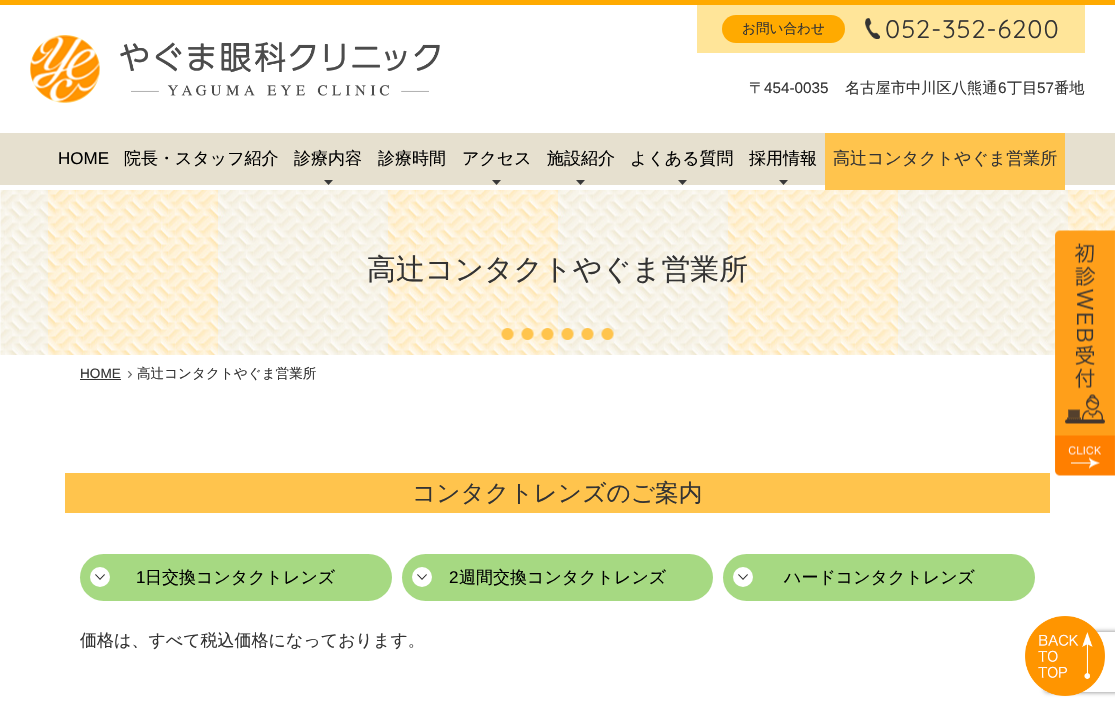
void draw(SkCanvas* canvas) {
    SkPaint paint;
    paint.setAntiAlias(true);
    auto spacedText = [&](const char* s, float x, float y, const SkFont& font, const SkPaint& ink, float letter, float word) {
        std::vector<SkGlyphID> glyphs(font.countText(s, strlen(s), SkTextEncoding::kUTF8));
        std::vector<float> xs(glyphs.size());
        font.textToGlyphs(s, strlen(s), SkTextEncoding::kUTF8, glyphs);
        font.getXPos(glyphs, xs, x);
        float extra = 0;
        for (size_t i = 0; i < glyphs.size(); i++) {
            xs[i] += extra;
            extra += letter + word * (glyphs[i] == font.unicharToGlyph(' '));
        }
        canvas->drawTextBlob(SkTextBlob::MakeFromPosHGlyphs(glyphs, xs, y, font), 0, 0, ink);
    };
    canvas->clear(0xFFFFFFFF);
    paint.setColor(0xFFFFAA00);
    canvas->drawRect(SkRect::MakeXYWH(0, 0, 1115, 5), paint);
    canvas->drawImageRect(SkImages::DeferredFromEncodedData(SkData::MakeFromFileName("img1.png")), SkRect::MakeXYWH(30, 35, 70, 68), SkSamplingOptions());
    canvas->drawImageRect(SkImages::DeferredFromEncodedData(SkData::MakeFromFileName("img2.png")), SkRect::MakeXYWH(120, 42, 320, 54), SkSamplingOptions());
    paint.setColor(0xFFFFE599);
    canvas->drawRect(SkRect::MakeXYWH(697, 5, 388, 48), paint);
    paint.setColor(0xFFFFAA00);
    canvas->drawRoundRect(SkRect::MakeXYWH(722, 15, 123, 28), 14, 14, paint);
    SkFont font1(fontMgr->matchFamilyStyle("WenQuanYi Zen Hei", SkFontStyle(500, SkFontStyle::kNormal_Width, SkFontStyle::kUpright_Slant)), 13.6f);
    font1.setSubpixel(true);
    paint.setColor(0xFF333333);
    canvas->drawString("お問い合わせ", 742, 33, font1, paint);
    canvas->drawImageRect(SkImages::DeferredFromEncodedData(SkData::MakeFromFileName("img3.png")), SkRect::MakeXYWH(865, 18, 15, 21), SkSamplingOptions());
    SkFont font2(fontMgr->matchFamilyStyle("Quicksand", SkFontStyle(300, SkFontStyle::kNormal_Width, SkFontStyle::kUpright_Slant)), 25.5f);
    font2.setSubpixel(true);
    spacedText("052-352-6200", 885, 38, font2, paint, 1, 0);
    SkFont font3(fontMgr->matchFamilyStyle("WenQuanYi Zen Hei", SkFontStyle(500, SkFontStyle::kNormal_Width, SkFontStyle::kUpright_Slant)), 15.25f);
    font3.setSubpixel(true);
    canvas->drawString("〒", 749, 93, font3, paint);
    SkFont font4(fontMgr->matchFamilyStyle("Liberation Sans", SkFontStyle::Normal()), 15.25f);
    font4.setSubpixel(true);
    canvas->drawString("454-0035", 764, 93, font4, paint);
    canvas->drawString("名古屋市中川区八熊通", 845, 93, font3, paint);
    canvas->drawString("6", 998, 93, font4, paint);
    canvas->drawString("丁目", 1007, 93, font3, paint);
    canvas->drawString("57", 1037, 93, font4, paint);
    canvas->drawString("番地", 1054, 93, font3, paint);
    paint.setColor(0xFFE6E0CF);
    canvas->drawRect(SkRect::MakeXYWH(0, 133, 1115, 52), paint);
    SkFont font5(fontMgr->matchFamilyStyle("Liberation Sans", SkFontStyle::Normal()), 17);
    font5.setSubpixel(true);
    paint.setColor(0xFF000000);
    canvas->drawString("HOME", 58, 164, font5, paint);
    SkFont font6(fontMgr->matchFamilyStyle("WenQuanYi Zen Hei", SkFontStyle(500, SkFontStyle::kNormal_Width, SkFontStyle::kUpright_Slant)), 17);
    font6.setSubpixel(true);
    canvas->drawString("院長・スタッフ紹介", 124, 164, font6, paint);
    canvas->drawString("診療内容", 294, 164, font6, paint);
    canvas->drawImageRect(SkImages::DeferredFromEncodedData(SkData::MakeFromFileName("img4.png")), SkRect::MakeXYWH(324, 180, 9, 5), SkSamplingOptions());
    canvas->drawString("診療時間", 378, 164, font6, paint);
    canvas->drawString("アクセス", 462, 164, font6, paint);
    canvas->drawImageRect(SkImages::DeferredFromEncodedData(SkData::MakeFromFileName("img4.png")), SkRect::MakeXYWH(492, 180, 9, 5), SkSamplingOptions());
    canvas->drawString("施設紹介", 547, 164, font6, paint);
    canvas->drawImageRect(SkImages::DeferredFromEncodedData(SkData::MakeFromFileName("img4.png")), SkRect::MakeXYWH(576, 180, 9, 5), SkSamplingOptions());
    canvas->drawString("よくある質問", 630, 164, font6, paint);
    canvas->drawImageRect(SkImages::DeferredFromEncodedData(SkData::MakeFromFileName("img4.png")), SkRect::MakeXYWH(678, 180, 9, 5), SkSamplingOptions());
    canvas->drawString("採用情報", 749, 164, font6, paint);
    canvas->drawImageRect(SkImages::DeferredFromEncodedData(SkData::MakeFromFileName("img4.png")), SkRect::MakeXYWH(779, 180, 9, 5), SkSamplingOptions());
    paint.setColor(0xFFFFC44D);
    canvas->drawRect(SkRect::MakeXYWH(825, 133, 240, 57), paint);
    paint.setColor(0xFF333333);
    canvas->drawString("高辻コンタクトやぐま営業所", 833, 164, font6, paint);
    canvas->drawImageRect(SkImages::DeferredFromEncodedData(SkData::MakeFromFileName("img5.png")), SkRect::MakeXYWH(0, 190, 1115, 165), SkSamplingOptions());
    SkFont font7(fontMgr->matchFamilyStyle("WenQuanYi Zen Hei", SkFontStyle(500, SkFontStyle::kNormal_Width, SkFontStyle::kUpright_Slant)), 28.9f);
    font7.setSubpixel(true);
    canvas->drawString("高辻コンタクトやぐま営業所", 367, 279, font7, paint);
    SkFont font8(fontMgr->matchFamilyStyle("Liberation Sans", SkFontStyle::Normal()), 13.6f);
    font8.setSubpixel(true);
    canvas->drawString("HOME", 80, 378, font8, paint);
    canvas->drawRect(SkRect::MakeXYWH(80, 379, 41, 1), paint);
    canvas->drawImageRect(SkImages::DeferredFromEncodedData(SkData::MakeFromFileName("img6.png")), SkRect::MakeXYWH(127, 371, 5, 7), SkSamplingOptions());
    canvas->drawString("高辻コンタクトやぐま営業所", 137, 378, font1, paint);
    paint.setColor(0xFFFFC44D);
    canvas->drawRect(SkRect::MakeXYWH(65, 473, 985, 40), paint);
    SkFont font9(fontMgr->matchFamilyStyle("WenQuanYi Zen Hei", SkFontStyle(500, SkFontStyle::kNormal_Width, SkFontStyle::kUpright_Slant)), 23.75f);
    font9.setSubpixel(true);
    paint.setColor(0xFF333333);
    canvas->drawString("コンタクトレンズのご案内", 412, 501, font9, paint);
    paint.setColor(0xFFA6D982);
    canvas->drawRoundRect(SkRect::MakeXYWH(80, 554, 312, 47), 23.5f, 23.5f, paint);
    paint.setColor(0xFFFFFFFF);
    canvas->drawCircle(100, 577, 10, paint);
    paint.setColor(0xFF000000);
    canvas->drawString("1", 136, 583, font5, paint);
    canvas->drawString("日交換コンタクトレンズ", 145, 583, font6, paint);
    canvas->drawImageRect(SkImages::DeferredFromEncodedData(SkData::MakeFromFileName("img7.png")), SkRect::MakeXYWH(95, 574, 10, 6), SkSamplingOptions());
    paint.setColor(0xFFA6D982);
    canvas->drawRoundRect(SkRect::MakeXYWH(402, 554, 311, 47), 23.5f, 23.5f, paint);
    paint.setColor(0xFFFFFFFF);
    canvas->drawCircle(422, 577, 10, paint);
    paint.setColor(0xFF000000);
    canvas->drawString("2", 449, 583, font5, paint);
    canvas->drawString("週間交換コンタクトレンズ", 459, 583, font6, paint);
    canvas->drawImageRect(SkImages::DeferredFromEncodedData(SkData::MakeFromFileName("img7.png")), SkRect::MakeXYWH(417, 574, 10, 6), SkSamplingOptions());
    paint.setColor(0xFFA6D982);
    canvas->drawRoundRect(SkRect::MakeXYWH(723, 554, 312, 47), 23.5f, 23.5f, paint);
    paint.setColor(0xFFFFFFFF);
    canvas->drawCircle(743, 577, 10, paint);
    paint.setColor(0xFF000000);
    canvas->drawString("ハードコンタクトレンズ", 784, 583, font6, paint);
    canvas->drawImageRect(SkImages::DeferredFromEncodedData(SkData::MakeFromFileName("img7.png")), SkRect::MakeXYWH(738, 574, 10, 6), SkSamplingOptions());
    paint.setColor(0xFF333333);
    canvas->drawString("価格は、すべて税込価格になっております。", 80, 646, font6, paint);
    canvas->drawImageRect(SkImages::DeferredFromEncodedData(SkData::MakeFromFileName("img8.png")), SkRect::MakeXYWH(1055, 230, 60, 246), SkSamplingOptions());
    canvas->save();
    canvas->clipPath(SkPathBuilder(SkPathFillType::kEvenOdd).moveTo(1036, 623).lineTo(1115, 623).lineTo(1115, 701).lineTo(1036, 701).close().moveTo(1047, 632).lineTo(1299, 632).cubicTo(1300, 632, 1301, 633, 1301, 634).lineTo(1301, 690).cubicTo(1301, 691, 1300, 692, 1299, 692).lineTo(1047, 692).cubicTo(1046, 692, 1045, 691, 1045, 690).lineTo(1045, 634).cubicTo(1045, 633, 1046, 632, 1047, 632).close().detach(), true);
    paint.setColor(0xFF808080);
    paint.setMaskFilter(SkMaskFilter::MakeBlur(kNormal_SkBlurStyle, 2.5f));
    canvas->drawRoundRect(SkRect::MakeXYWH(1045, 632, 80, 60), 2, 2, paint);
    paint.setMaskFilter(nullptr);
    canvas->restore();
    canvas->drawImageRect(SkImages::DeferredFromEncodedData(SkData::MakeFromFileName("img9.png")), SkRect::MakeXYWH(1025, 616, 80, 80), SkSamplingOptions());
}
